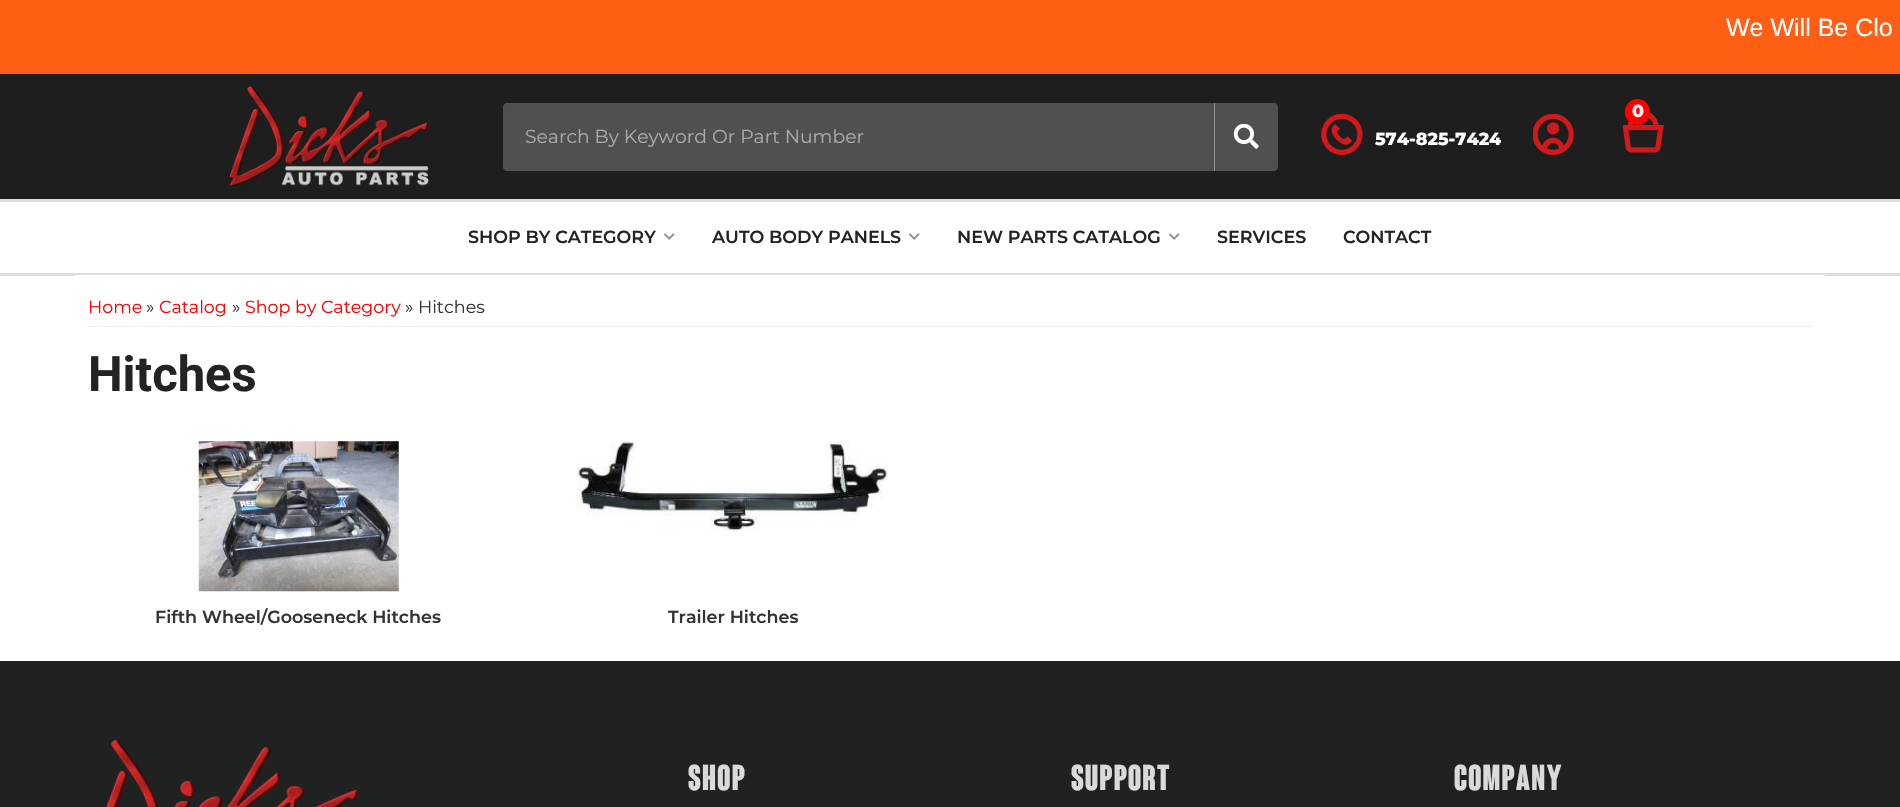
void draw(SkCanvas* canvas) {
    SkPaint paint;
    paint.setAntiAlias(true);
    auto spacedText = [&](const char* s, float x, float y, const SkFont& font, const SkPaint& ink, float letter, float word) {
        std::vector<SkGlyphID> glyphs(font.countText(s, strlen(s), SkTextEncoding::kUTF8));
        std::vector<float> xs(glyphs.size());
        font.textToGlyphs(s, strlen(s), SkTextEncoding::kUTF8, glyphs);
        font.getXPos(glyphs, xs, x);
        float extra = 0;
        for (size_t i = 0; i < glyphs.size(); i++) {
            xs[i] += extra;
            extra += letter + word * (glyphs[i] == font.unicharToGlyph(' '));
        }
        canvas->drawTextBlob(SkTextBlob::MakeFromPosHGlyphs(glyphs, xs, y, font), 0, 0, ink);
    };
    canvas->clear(0xFFFFFFFF);
    paint.setColor(0xFFFF5F15);
    canvas->drawRect(SkRect::MakeXYWH(0, 0, 1900, 74), paint);
    SkFont font1(fontMgr->matchFamilyStyle("Liberation Sans", SkFontStyle::Normal()), 25);
    font1.setSubpixel(true);
    paint.setColor(0xFFFFFFFF);
    canvas->drawString("We Will Be Clo", 1726, 36, font1, paint);
    paint.setColor(0xFF1E1E1E);
    canvas->drawRect(SkRect::MakeXYWH(0, 74, 1900, 125), paint);
    canvas->drawImageRect(SkImages::DeferredFromEncodedData(SkData::MakeFromFileName("img1.png")), SkRect::MakeXYWH(230, 86, 199, 100), SkSamplingOptions());
    canvas->drawImageRect(SkImages::DeferredFromEncodedData(SkData::MakeFromFileName("img2.png")), SkRect::MakeXYWH(1623, 112, 41, 41), SkSamplingOptions());
    paint.setColor(0xFFFF0000);
    canvas->drawRoundRect(SkRect::MakeXYWH(1625, 99, 25, 26), 12.5f, 12.5f, paint);
    SkFont font2(fontMgr->matchFamilyStyle("Montserrat", SkFontStyle(100, SkFontStyle::kNormal_Width, SkFontStyle::kUpright_Slant)), 17.5f);
    font2.setSubpixel(true);
    paint.setColor(0xFFEEEEEE);
    canvas->drawString("0", 1632, 117, font2, paint);
    paint.setColor(0xFF505050);
    canvas->drawPath(SkPathBuilder().moveTo(1214, 103).lineTo(1274, 103).cubicTo(1276, 103, 1278, 105, 1278, 107).lineTo(1278, 167).cubicTo(1278, 169, 1276, 171, 1274, 171).lineTo(1214, 171).close().detach(), paint);
    paint.setColor(0xFF939393);
    canvas->drawRect(SkRect::MakeXYWH(1214, 103, 1, 68), paint);
    paint.setColor(0xFF505050);
    canvas->drawPath(SkPathBuilder().moveTo(507, 103).lineTo(1214, 103).lineTo(1214, 171).lineTo(507, 171).cubicTo(505, 171, 503, 169, 503, 167).lineTo(503, 107).cubicTo(503, 105, 505, 103, 507, 103).close().detach(), paint);
    SkFont font3(fontMgr->matchFamilyStyle("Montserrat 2", SkFontStyle(100, SkFontStyle::kNormal_Width, SkFontStyle::kUpright_Slant)), 18.75f);
    font3.setSubpixel(true);
    paint.setColor(0xFFAAAAAA);
    canvas->drawString("Search By Keyword Or Part Number", 525, 143, font3, paint);
    canvas->drawImageRect(SkImages::DeferredFromEncodedData(SkData::MakeFromFileName("img3.png")), SkRect::MakeXYWH(1234, 124, 25, 25), SkSamplingOptions());
    canvas->drawImageRect(SkImages::DeferredFromEncodedData(SkData::MakeFromFileName("img4.png")), SkRect::MakeXYWH(1321, 114, 42, 41), SkSamplingOptions());
    paint.setColor(0xFFFFFFFF);
    canvas->drawString("574-825-7424", 1375, 145, font2, paint);
    paint.setColor(0xFF1E1E1E);
    canvas->drawRect(SkRect::MakeXYWH(1501, 139, 1, 4), paint);
    canvas->drawImageRect(SkImages::DeferredFromEncodedData(SkData::MakeFromFileName("img5.png")), SkRect::MakeXYWH(1533, 114, 41, 41), SkSamplingOptions());
    paint.setColor(0xFFDDDDDD);
    canvas->drawRect(SkRect::MakeXYWH(0, 199, 1900, 3), paint);
    canvas->drawRect(SkRect::MakeXYWH(0, 273, 1900, 3), paint);
    SkFont font4(fontMgr->matchFamilyStyle("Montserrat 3", SkFontStyle(100, SkFontStyle::kNormal_Width, SkFontStyle::kUpright_Slant)), 17.5f);
    font4.setSubpixel(true);
    paint.setColor(0xFF222325);
    canvas->drawString("SHOP BY CATEGORY", 468, 243, font4, paint);
    canvas->drawImageRect(SkImages::DeferredFromEncodedData(SkData::MakeFromFileName("img6.png")), SkRect::MakeXYWH(664, 233, 11, 7), SkSamplingOptions());
    canvas->drawString("AUTO BODY PANELS", 712, 243, font4, paint);
    canvas->drawImageRect(SkImages::DeferredFromEncodedData(SkData::MakeFromFileName("img6.png")), SkRect::MakeXYWH(909, 233, 11, 7), SkSamplingOptions());
    canvas->drawString("NEW PARTS CATALOG", 957, 243, font4, paint);
    canvas->drawImageRect(SkImages::DeferredFromEncodedData(SkData::MakeFromFileName("img6.png")), SkRect::MakeXYWH(1169, 233, 11, 7), SkSamplingOptions());
    canvas->drawString("SERVICES", 1217, 243, font4, paint);
    canvas->drawString("CONTACT", 1343, 243, font4, paint);
    paint.setColor(0xFFFFFFFF);
    canvas->drawRect(SkRect::MakeXYWH(75, 275, 1750, 1), paint);
    paint.setColor(0xFFEEEEEE);
    canvas->drawRect(SkRect::MakeXYWH(88, 326, 1725, 1), paint);
    SkFont font5(fontMgr->matchFamilyStyle("Montserrat 2", SkFontStyle(100, SkFontStyle::kNormal_Width, SkFontStyle::kUpright_Slant)), 17.5f);
    font5.setSubpixel(true);
    paint.setColor(0xFFFF0000);
    canvas->drawString("Home", 88, 313, font5, paint);
    paint.setColor(0xFF333333);
    canvas->drawString("»", 146, 313, font5, paint);
    paint.setColor(0xFFFF0000);
    canvas->drawString("Catalog", 159, 313, font5, paint);
    paint.setColor(0xFF333333);
    canvas->drawString("»", 232, 313, font5, paint);
    paint.setColor(0xFFFF0000);
    canvas->drawString("Shop by Category", 245, 313, font5, paint);
    paint.setColor(0xFF333333);
    canvas->drawString("» Hitches", 405, 313, font5, paint);
    SkFont font6(fontMgr->matchFamilyStyle("Roboto", SkFontStyle::Bold()), 49);
    font6.setSubpixel(true);
    paint.setColor(0xFF222325);
    canvas->drawString("Hitches", 88, 391, font6, paint);
    canvas->drawImageRect(SkImages::DeferredFromEncodedData(SkData::MakeFromFileName("img7.png")), SkRect::MakeXYWH(198, 441, 201, 151), SkSamplingOptions());
    paint.setColor(0xFF333333);
    canvas->drawString("Fifth Wheel/Gooseneck Hitches", 155, 623, font4, paint);
    canvas->drawImageRect(SkImages::DeferredFromEncodedData(SkData::MakeFromFileName("img8.png")), SkRect::MakeXYWH(577, 441, 311, 91), SkSamplingOptions());
    canvas->drawString("Trailer Hitches", 668, 623, font4, paint);
    paint.setColor(0xFF202121);
    canvas->drawRect(SkRect::MakeXYWH(0, 661, 1900, 146), paint);
    canvas->drawImageRect(SkImages::DeferredFromEncodedData(SkData::MakeFromFileName("img9.png")), SkRect::MakeXYWH(106, 740, 253, 67), SkSamplingOptions());
    SkFont font7(fontMgr->matchFamilyStyle("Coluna", SkFontStyle::Bold()), 35);
    font7.setSubpixel(true);
    paint.setColor(0xFFDADADA);
    spacedText("SHOP", 688, 790, font7, paint, 1.25f, 0);
    spacedText("SUPPORT", 1071, 790, font7, paint, 1.25f, 0);
    spacedText("COMPANY", 1454, 790, font7, paint, 1.25f, 0);
}
